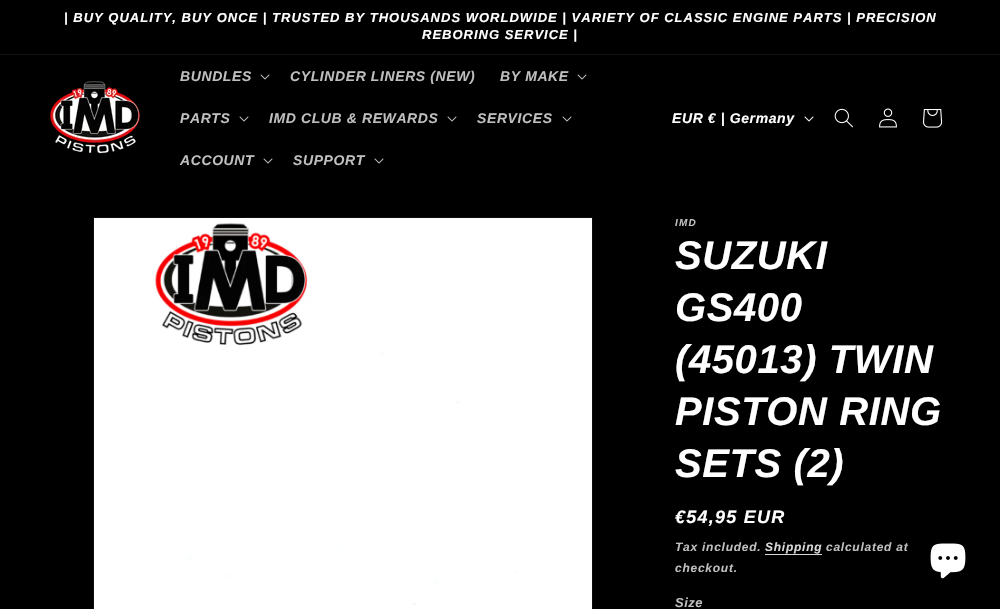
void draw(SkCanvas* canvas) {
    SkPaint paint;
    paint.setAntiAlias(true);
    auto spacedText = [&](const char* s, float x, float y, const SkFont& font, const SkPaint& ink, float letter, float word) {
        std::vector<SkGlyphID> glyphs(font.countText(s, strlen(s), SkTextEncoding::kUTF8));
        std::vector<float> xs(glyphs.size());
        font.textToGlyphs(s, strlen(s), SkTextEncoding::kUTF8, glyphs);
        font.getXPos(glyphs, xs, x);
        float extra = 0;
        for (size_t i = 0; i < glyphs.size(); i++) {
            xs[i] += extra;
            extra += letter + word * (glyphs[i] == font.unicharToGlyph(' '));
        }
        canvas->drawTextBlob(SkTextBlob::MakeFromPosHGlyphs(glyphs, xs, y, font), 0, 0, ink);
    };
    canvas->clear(0xFF000000);
    paint.setColor(0xFF141414);
    canvas->drawRect(SkRect::MakeXYWH(0, 54, 1000, 1), paint);
    SkFont font1(fontMgr->matchFamilyStyle("Arimo", SkFontStyle::BoldItalic()), 13);
    font1.setSubpixel(true);
    paint.setColor(0xFFFFFFFF);
    spacedText("| BUY QUALITY, BUY ONCE | TRUSTED BY THOUSANDS WORLDWIDE | VARIETY OF CLASSIC ENGINE PARTS | PRECISION", 64, 22, font1, paint, 1, 0);
    spacedText("REBORING SERVICE |", 422, 39, font1, paint, 1, 0);
    canvas->drawImageRect(SkImages::DeferredFromEncodedData(SkData::MakeFromFileName("img1.png")), SkRect::MakeXYWH(50, 81, 90, 73), SkSamplingOptions());
    SkFont font2(fontMgr->matchFamilyStyle("Arimo", SkFontStyle::BoldItalic()), 14);
    font2.setSubpixel(true);
    paint.setColor(0xFFBFBFBF);
    spacedText("BUNDLES", 180, 81, font2, paint, 0.6f, 0);
    canvas->drawImageRect(SkImages::DeferredFromEncodedData(SkData::MakeFromFileName("img2.png")), SkRect::MakeXYWH(260, 74, 10, 6), SkSamplingOptions());
    spacedText("CYLINDER LINERS (NEW)", 290, 81, font2, paint, 0.6f, 0);
    spacedText("BY MAKE", 500, 81, font2, paint, 0.6f, 0);
    canvas->drawImageRect(SkImages::DeferredFromEncodedData(SkData::MakeFromFileName("img2.png")), SkRect::MakeXYWH(577, 74, 10, 6), SkSamplingOptions());
    spacedText("PARTS", 180, 123, font2, paint, 0.6f, 0);
    canvas->drawImageRect(SkImages::DeferredFromEncodedData(SkData::MakeFromFileName("img2.png")), SkRect::MakeXYWH(239, 116, 10, 6), SkSamplingOptions());
    spacedText("IMD CLUB & REWARDS", 269, 123, font2, paint, 0.6f, 0);
    canvas->drawImageRect(SkImages::DeferredFromEncodedData(SkData::MakeFromFileName("img2.png")), SkRect::MakeXYWH(447, 116, 10, 6), SkSamplingOptions());
    spacedText("SERVICES", 477, 123, font2, paint, 0.6f, 0);
    canvas->drawImageRect(SkImages::DeferredFromEncodedData(SkData::MakeFromFileName("img2.png")), SkRect::MakeXYWH(562, 116, 10, 6), SkSamplingOptions());
    spacedText("ACCOUNT", 180, 165, font2, paint, 0.6f, 0);
    canvas->drawImageRect(SkImages::DeferredFromEncodedData(SkData::MakeFromFileName("img2.png")), SkRect::MakeXYWH(263, 158, 10, 6), SkSamplingOptions());
    spacedText("SUPPORT", 293, 165, font2, paint, 0.6f, 0);
    canvas->drawImageRect(SkImages::DeferredFromEncodedData(SkData::MakeFromFileName("img2.png")), SkRect::MakeXYWH(374, 158, 10, 6), SkSamplingOptions());
    paint.setColor(0xFFFFFFFF);
    spacedText("EUR € | Germany", 672, 123, font2, paint, 0.6f, 0);
    canvas->drawImageRect(SkImages::DeferredFromEncodedData(SkData::MakeFromFileName("img3.png")), SkRect::MakeXYWH(804, 116, 10, 6), SkSamplingOptions());
    canvas->drawImageRect(SkImages::DeferredFromEncodedData(SkData::MakeFromFileName("img4.png")), SkRect::MakeXYWH(834, 108, 19, 20), SkSamplingOptions());
    canvas->drawImageRect(SkImages::DeferredFromEncodedData(SkData::MakeFromFileName("img5.png")), SkRect::MakeXYWH(879, 108, 18, 20), SkSamplingOptions());
    canvas->drawImageRect(SkImages::DeferredFromEncodedData(SkData::MakeFromFileName("img6.png")), SkRect::MakeXYWH(923, 109, 20, 19), SkSamplingOptions());
    paint.setStyle(SkPaint::kStroke_Style);
    paint.setStrokeWidth(1);
    paint.setColor(0xFF0D0D0D);
    canvas->drawRect(SkRect::MakeXYWH(93.5f, 217.5f, 499, 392), paint);
    canvas->drawImageRect(SkImages::DeferredFromEncodedData(SkData::MakeFromFileName("img7.png")), SkRect::MakeXYWH(94, 218, 498, 391), SkSamplingOptions());
    SkFont font3(fontMgr->matchFamilyStyle("Arimo", SkFontStyle::BoldItalic()), 10);
    font3.setSubpixel(true);
    paint.setStyle(SkPaint::kFill_Style);
    paint.setColor(0xFFBFBFBF);
    spacedText("IMD", 675, 226, font3, paint, 1.25f, 0);
    SkFont font4(fontMgr->matchFamilyStyle("Arimo", SkFontStyle::BoldItalic()), 40);
    font4.setSubpixel(true);
    paint.setColor(0xFFFFFFFF);
    spacedText("SUZUKI", 675, 269, font4, paint, 0.6f, 0);
    spacedText("GS400", 675, 321, font4, paint, 0.6f, 0);
    spacedText("(45013) TWIN", 675, 373, font4, paint, 0.6f, 0);
    spacedText("PISTON RING", 675, 425, font4, paint, 0.6f, 0);
    spacedText("SETS (2)", 675, 477, font4, paint, 0.6f, 0);
    SkFont font5(fontMgr->matchFamilyStyle("Arimo", SkFontStyle::BoldItalic()), 18);
    font5.setSubpixel(true);
    spacedText("€54,95 EUR", 675, 523, font5, paint, 1.25f, 0);
    SkFont font6(fontMgr->matchFamilyStyle("Arimo", SkFontStyle::BoldItalic()), 12);
    font6.setSubpixel(true);
    paint.setColor(0xFFBFBFBF);
    spacedText("Tax included.", 675, 551, font6, paint, 0.75f, 0);
    paint.setColor(0xFFD9D9D9);
    spacedText("Shipping", 765, 551, font6, paint, 0.75f, 0);
    canvas->drawRect(SkRect::MakeXYWH(765, 554, 57, 1), paint);
    paint.setColor(0xFFBFBFBF);
    spacedText("calculated at", 826, 551, font6, paint, 0.75f, 0);
    spacedText("checkout.", 675, 572, font6, paint, 0.75f, 0);
    spacedText("Size", 675, 607, font1, paint, 0.5f, 0);
    canvas->drawImageRect(SkImages::DeferredFromEncodedData(SkData::MakeFromFileName("img8.png")), SkRect::MakeXYWH(930, 543, 36, 36), SkSamplingOptions());
}
